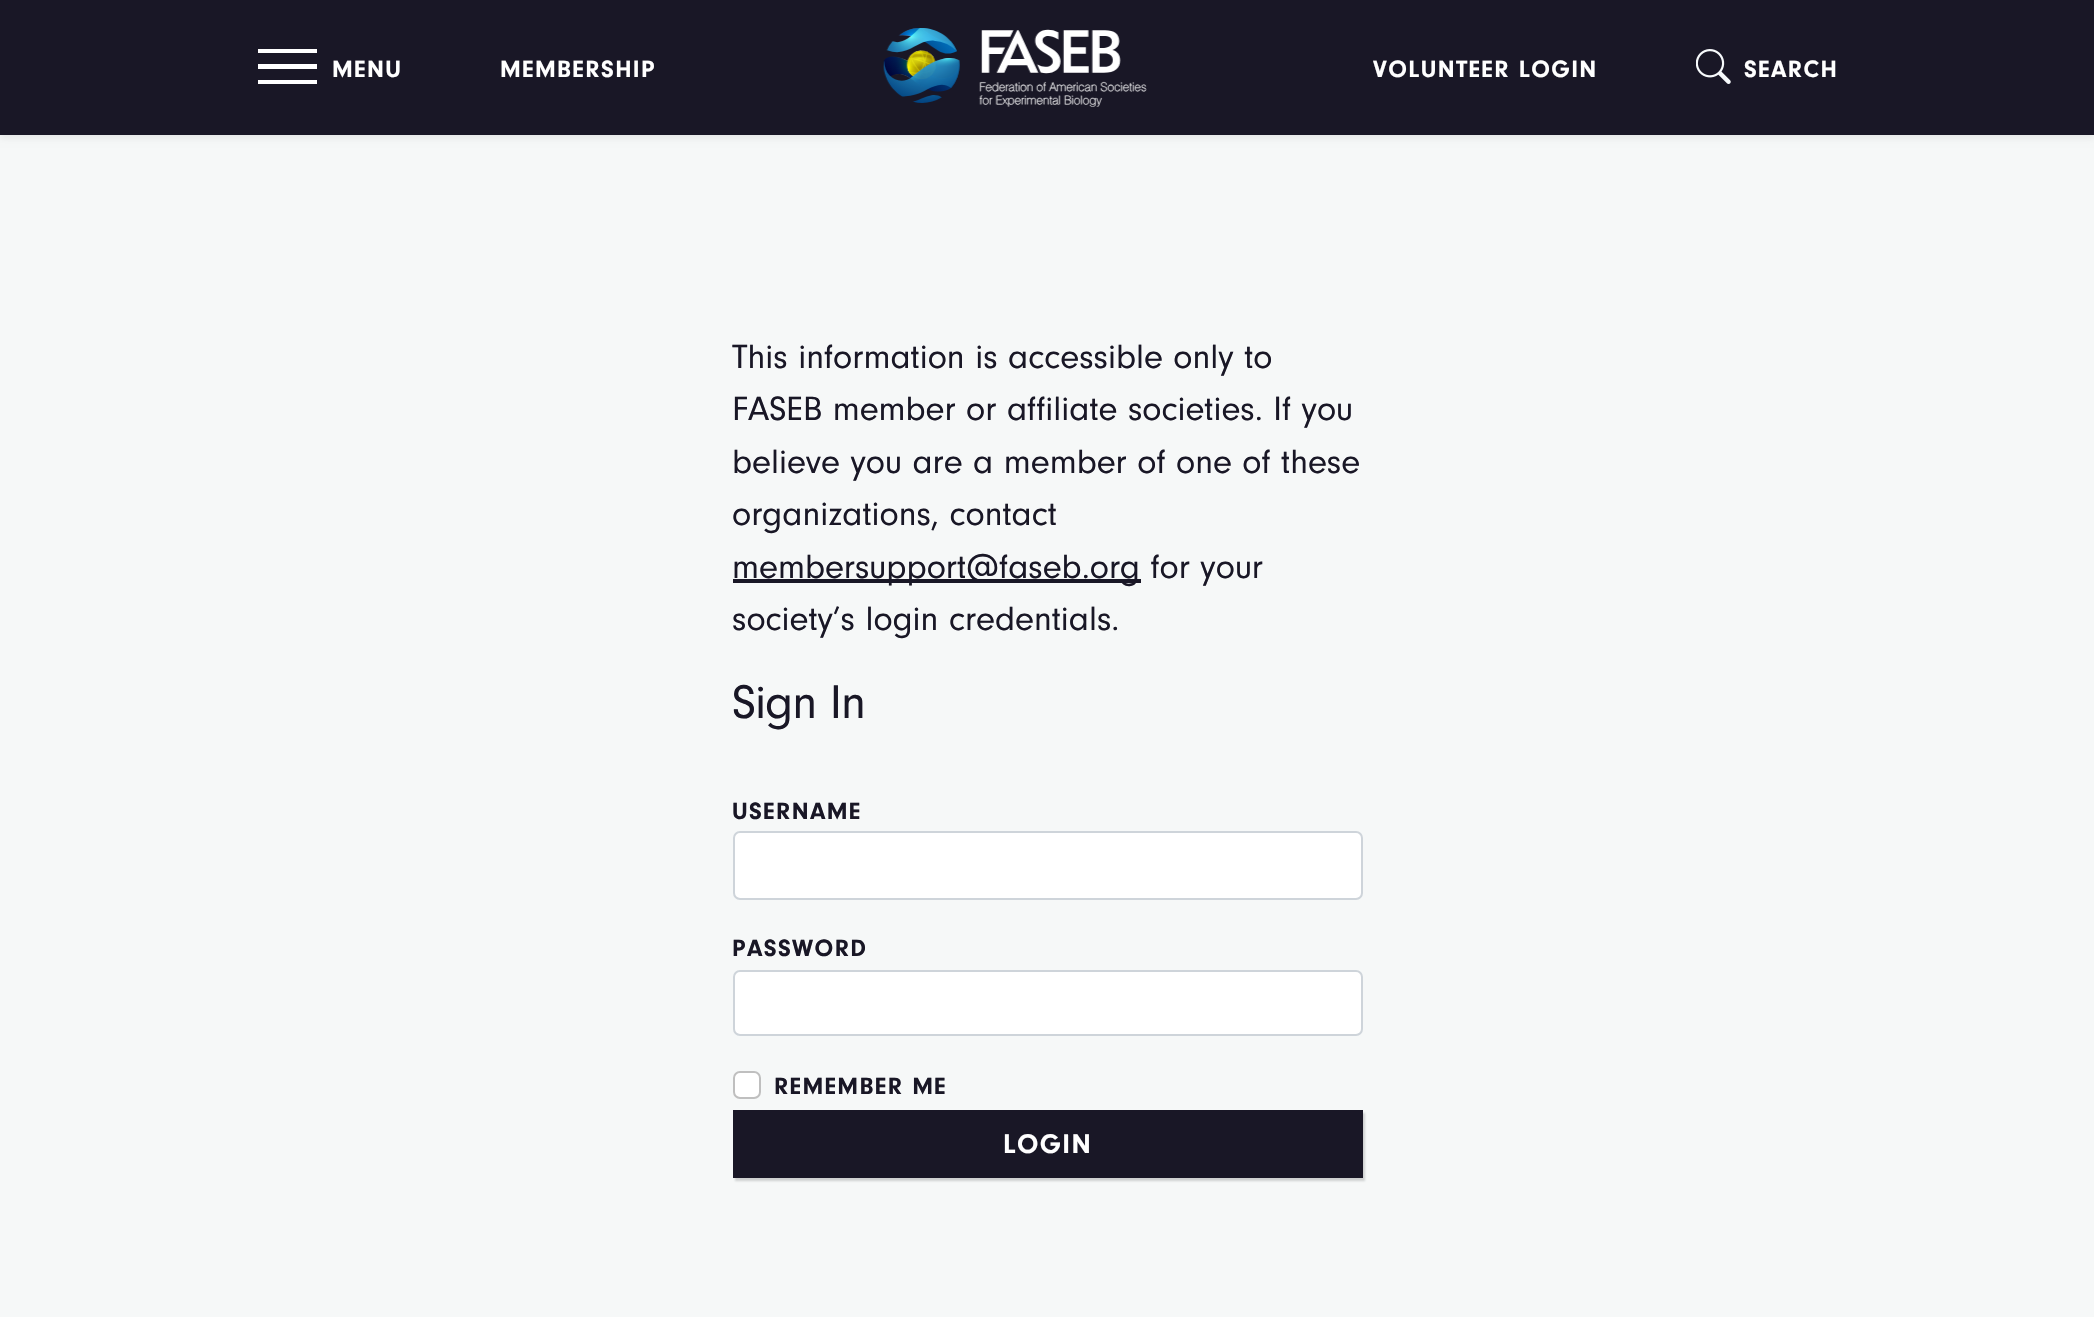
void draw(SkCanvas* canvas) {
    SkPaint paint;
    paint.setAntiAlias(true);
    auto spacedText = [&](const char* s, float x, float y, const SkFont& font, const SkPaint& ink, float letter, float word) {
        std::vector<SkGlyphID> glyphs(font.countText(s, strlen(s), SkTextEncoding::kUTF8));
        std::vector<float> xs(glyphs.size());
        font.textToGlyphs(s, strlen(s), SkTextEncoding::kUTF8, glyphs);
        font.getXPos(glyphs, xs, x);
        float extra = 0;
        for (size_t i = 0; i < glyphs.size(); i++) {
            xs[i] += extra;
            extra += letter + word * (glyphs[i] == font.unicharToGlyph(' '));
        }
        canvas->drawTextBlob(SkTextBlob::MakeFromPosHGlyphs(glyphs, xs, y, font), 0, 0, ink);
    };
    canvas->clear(0xFFF6F8F8);
    paint.setColor(0x12000000);
    paint.setMaskFilter(SkMaskFilter::MakeBlur(kNormal_SkBlurStyle, 3.5f));
    canvas->drawRect(SkRect::MakeXYWH(0, 4, 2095, 134), paint);
    paint.setMaskFilter(nullptr);
    paint.setColor(0xFF191726);
    canvas->drawRect(SkRect::MakeXYWH(0, 0, 2094, 135), paint);
    paint.setColor(0xFFFFFFFF);
    canvas->drawPath(SkPathBuilder(SkPathFillType::kEvenOdd).moveTo(317, 80).lineTo(317, 84).lineTo(258, 84).lineTo(258, 80).close().moveTo(317, 64).lineTo(317, 69).lineTo(258, 69).lineTo(258, 64).close().moveTo(317, 49).lineTo(317, 53).lineTo(258, 53).lineTo(258, 49).close().detach(), paint);
    SkFont font1(fontMgr->matchFamilyStyle("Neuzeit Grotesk", SkFontStyle::Bold()), 24.5f);
    font1.setSubpixel(true);
    spacedText("MENU", 332, 77, font1, paint, 1.4f, 0);
    spacedText("MEMBERSHIP", 500, 77, font1, paint, 1.4f, 0);
    canvas->drawImageRect(SkImages::DeferredFromEncodedData(SkData::MakeFromFileName("img1.png")), SkRect::MakeXYWH(883, 28, 264, 79), SkSamplingOptions());
    spacedText("VOLUNTEER LOGIN", 1373, 77, font1, paint, 1.4f, 0);
    canvas->drawImageRect(SkImages::DeferredFromEncodedData(SkData::MakeFromFileName("img2.png")), SkRect::MakeXYWH(1696, 49, 35, 35), SkSamplingOptions());
    spacedText("SEARCH", 1744, 77, font1, paint, 1.4f, 0);
    SkFont font2(fontMgr->matchFamilyStyle("Neuzeit Grotesk", SkFontStyle::Normal()), 35);
    font2.setSubpixel(true);
    paint.setColor(0xFF191726);
    canvas->drawString("This information is accessible only to", 732, 368, font2, paint);
    canvas->drawString("FASEB member or affiliate societies. If you", 732, 420, font2, paint);
    canvas->drawString("believe you are a member of one of these", 732, 473, font2, paint);
    canvas->drawString("organizations, contact", 732, 525, font2, paint);
    canvas->drawRect(SkRect::MakeXYWH(733, 579, 408, 4), paint);
    canvas->drawString("membersupport@faseb.org for your", 732, 578, font2, paint);
    canvas->drawString("society’s login credentials.", 732, 630, font2, paint);
    SkFont font3(fontMgr->matchFamilyStyle("Neuzeit Grotesk", SkFontStyle::Normal()), 49);
    font3.setSubpixel(true);
    spacedText("Sign In", 732, 718, font3, paint, -1, 0);
    spacedText("USERNAME", 732, 819, font1, paint, 1.4f, 0);
    paint.setColor(0xFFFFFFFF);
    canvas->drawRoundRect(SkRect::MakeXYWH(734, 832, 628, 67), 6, 6, paint);
    paint.setStyle(SkPaint::kStroke_Style);
    paint.setStrokeWidth(2);
    paint.setColor(0xFFCED4DA);
    canvas->drawRoundRect(SkRect::MakeXYWH(734, 832, 628, 67), 6, 6, paint);
    paint.setStyle(SkPaint::kFill_Style);
    paint.setColor(0xFF191726);
    spacedText("PASSWORD", 732, 956, font1, paint, 1.4f, 0);
    paint.setColor(0xFFFFFFFF);
    canvas->drawRoundRect(SkRect::MakeXYWH(734, 971, 628, 64), 6, 6, paint);
    paint.setStyle(SkPaint::kStroke_Style);
    paint.setColor(0xFFCED4DA);
    canvas->drawRoundRect(SkRect::MakeXYWH(734, 971, 628, 64), 6, 6, paint);
    paint.setStyle(SkPaint::kFill_Style);
    paint.setColor(0xFFFFFFFF);
    canvas->drawRoundRect(SkRect::MakeXYWH(733, 1071, 28, 28), 7, 7, paint);
    paint.setStyle(SkPaint::kStroke_Style);
    paint.setColor(0x40000000);
    canvas->drawRoundRect(SkRect::MakeXYWH(734, 1072, 26, 26), 6, 6, paint);
    paint.setStyle(SkPaint::kFill_Style);
    paint.setColor(0xFF191726);
    spacedText("REMEMBER ME", 774, 1094, font1, paint, 1.4f, 0);
    paint.setColor(0x332F3031);
    paint.setMaskFilter(SkMaskFilter::MakeBlur(kNormal_SkBlurStyle, 1));
    canvas->drawRect(SkRect::MakeXYWH(735, 1113, 630, 68), paint);
    paint.setMaskFilter(nullptr);
    paint.setColor(0xFF191726);
    canvas->drawRect(SkRect::MakeXYWH(733, 1110, 630, 68), paint);
    SkFont font4(fontMgr->matchFamilyStyle("Neuzeit Grotesk", SkFontStyle::Bold()), 28);
    font4.setSubpixel(true);
    paint.setColor(0xFFFFFFFF);
    spacedText("LOGIN", 1003, 1153, font4, paint, 1.4f, 0);
}
